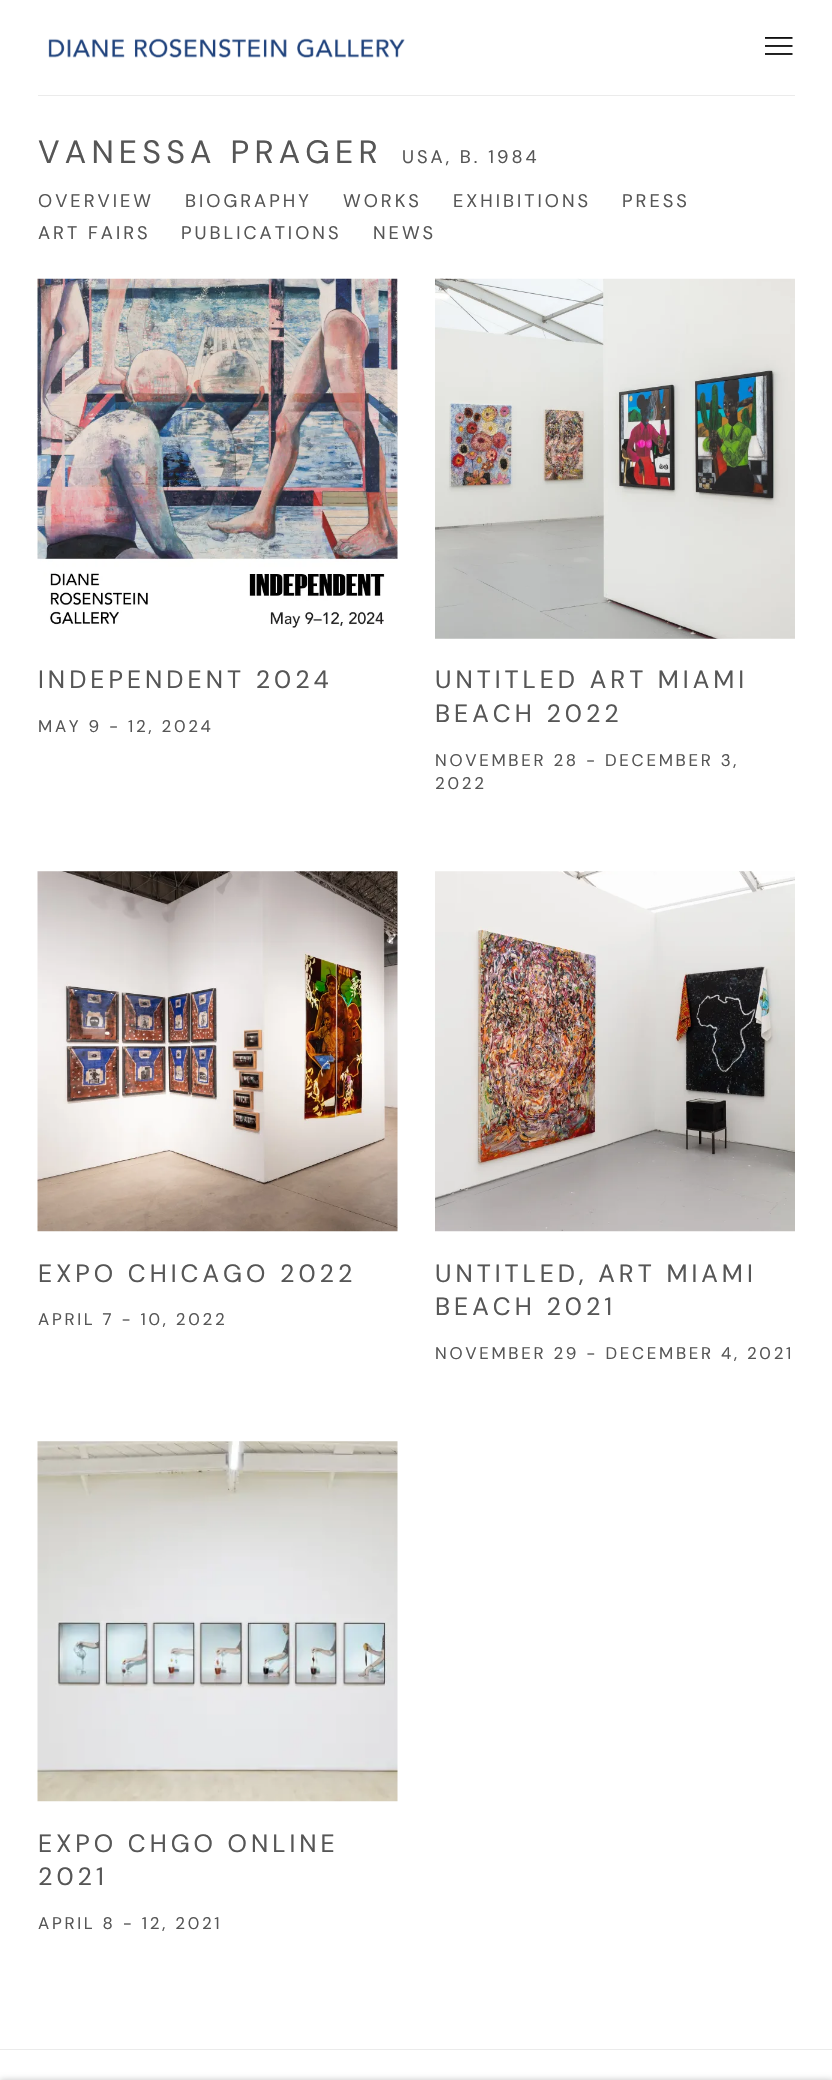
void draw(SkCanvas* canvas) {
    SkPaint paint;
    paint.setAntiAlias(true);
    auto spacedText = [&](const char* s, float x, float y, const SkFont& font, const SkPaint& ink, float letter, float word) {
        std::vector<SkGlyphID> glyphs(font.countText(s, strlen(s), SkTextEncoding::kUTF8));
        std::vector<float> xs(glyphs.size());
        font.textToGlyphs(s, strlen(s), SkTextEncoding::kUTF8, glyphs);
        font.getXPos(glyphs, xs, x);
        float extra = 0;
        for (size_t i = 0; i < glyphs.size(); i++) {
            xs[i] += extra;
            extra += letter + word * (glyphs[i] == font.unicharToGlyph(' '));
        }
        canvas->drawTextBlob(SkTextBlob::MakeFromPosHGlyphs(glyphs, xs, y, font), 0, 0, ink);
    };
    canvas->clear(0xFFFFFFFF);
    paint.setColor(0xFFEBEBEB);
    canvas->drawRect(SkRect::MakeXYWH(38, 95, 757, 1), paint);
    canvas->drawImageRect(SkImages::DeferredFromEncodedData(SkData::MakeFromFileName("img1.png")), SkRect::MakeXYWH(48, 38, 357, 20), SkSamplingOptions());
    canvas->drawImageRect(SkImages::DeferredFromEncodedData(SkData::MakeFromFileName("img2.png")), SkRect::MakeXYWH(765, 37, 28, 18), SkSamplingOptions());
    SkFont font1(fontMgr->matchFamilyStyle("DM Sans", SkFontStyle::Normal()), 32.25f);
    font1.setSubpixel(true);
    paint.setColor(0xFF565656);
    spacedText("VANESSA PRAGER", 38, 163, font1, paint, 5.2f, 0);
    SkFont font2(fontMgr->matchFamilyStyle("DM Sans", SkFontStyle::Normal()), 18.25f);
    font2.setSubpixel(true);
    spacedText("USA, B. 1984", 402, 163, font2, paint, 3, 0);
    spacedText("OVERVIEW", 38, 207, font2, paint, 3, 0);
    spacedText("BIOGRAPHY", 185, 207, font2, paint, 3, 0);
    spacedText("WORKS", 343, 207, font2, paint, 3, 0);
    spacedText("EXHIBITIONS", 453, 207, font2, paint, 3, 0);
    spacedText("PRESS", 622, 207, font2, paint, 3, 0);
    spacedText("ART FAIRS", 38, 239, font2, paint, 3, 0);
    spacedText("PUBLICATIONS", 181, 239, font2, paint, 3, 0);
    spacedText("NEWS", 373, 239, font2, paint, 3, 0);
    canvas->drawImageRect(SkImages::DeferredFromEncodedData(SkData::MakeFromFileName("img3.png")), SkRect::MakeXYWH(37, 278, 361, 350), SkSamplingOptions());
    SkFont font3(fontMgr->matchFamilyStyle("DM Sans", SkFontStyle::Normal()), 25);
    font3.setSubpixel(true);
    spacedText("INDEPENDENT 2024", 38, 688, font3, paint, 4, 0);
    SkFont font4(fontMgr->matchFamilyStyle("DM Sans", SkFontStyle::Normal()), 16.9f);
    font4.setSubpixel(true);
    spacedText("MAY 9 - 12, 2024", 38, 732, font4, paint, 2.7f, 0);
    canvas->drawImageRect(SkImages::DeferredFromEncodedData(SkData::MakeFromFileName("img4.png")), SkRect::MakeXYWH(435, 278, 360, 361), SkSamplingOptions());
    spacedText("UNTITLED ART MIAMI", 435, 688, font3, paint, 4, 0);
    spacedText("BEACH 2022", 435, 722, font3, paint, 4, 0);
    spacedText("NOVEMBER 28 - DECEMBER 3,", 435, 766, font4, paint, 2.7f, 0);
    spacedText("2022", 435, 789, font4, paint, 2.7f, 0);
    canvas->drawImageRect(SkImages::DeferredFromEncodedData(SkData::MakeFromFileName("img5.png")), SkRect::MakeXYWH(37, 871, 361, 361), SkSamplingOptions());
    spacedText("EXPO CHICAGO 2022", 38, 1282, font3, paint, 4, 0);
    spacedText("APRIL 7 - 10, 2022", 38, 1325, font4, paint, 2.7f, 0);
    canvas->drawImageRect(SkImages::DeferredFromEncodedData(SkData::MakeFromFileName("img6.png")), SkRect::MakeXYWH(435, 871, 360, 361), SkSamplingOptions());
    spacedText("UNTITLED, ART MIAMI", 435, 1282, font3, paint, 4, 0);
    spacedText("BEACH 2021", 435, 1315, font3, paint, 4, 0);
    spacedText("NOVEMBER 29 - DECEMBER 4, 2021", 435, 1359, font4, paint, 2.7f, 0);
    canvas->drawImageRect(SkImages::DeferredFromEncodedData(SkData::MakeFromFileName("img7.png")), SkRect::MakeXYWH(37, 1441, 361, 361), SkSamplingOptions());
    spacedText("EXPO CHGO ONLINE", 38, 1852, font3, paint, 4, 0);
    spacedText("2021", 38, 1885, font3, paint, 4, 0);
    spacedText("APRIL 8 - 12, 2021", 38, 1929, font4, paint, 2.7f, 0);
    paint.setColor(0xFFEBEBEB);
    canvas->drawRect(SkRect::MakeXYWH(0, 2049, 832, 1), paint);
    paint.setColor(0x3B000000);
    paint.setMaskFilter(SkMaskFilter::MakeBlur(kNormal_SkBlurStyle, 3));
    canvas->drawRect(SkRect::MakeXYWH(0, 2080, 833, 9), paint);
    paint.setMaskFilter(nullptr);
}
